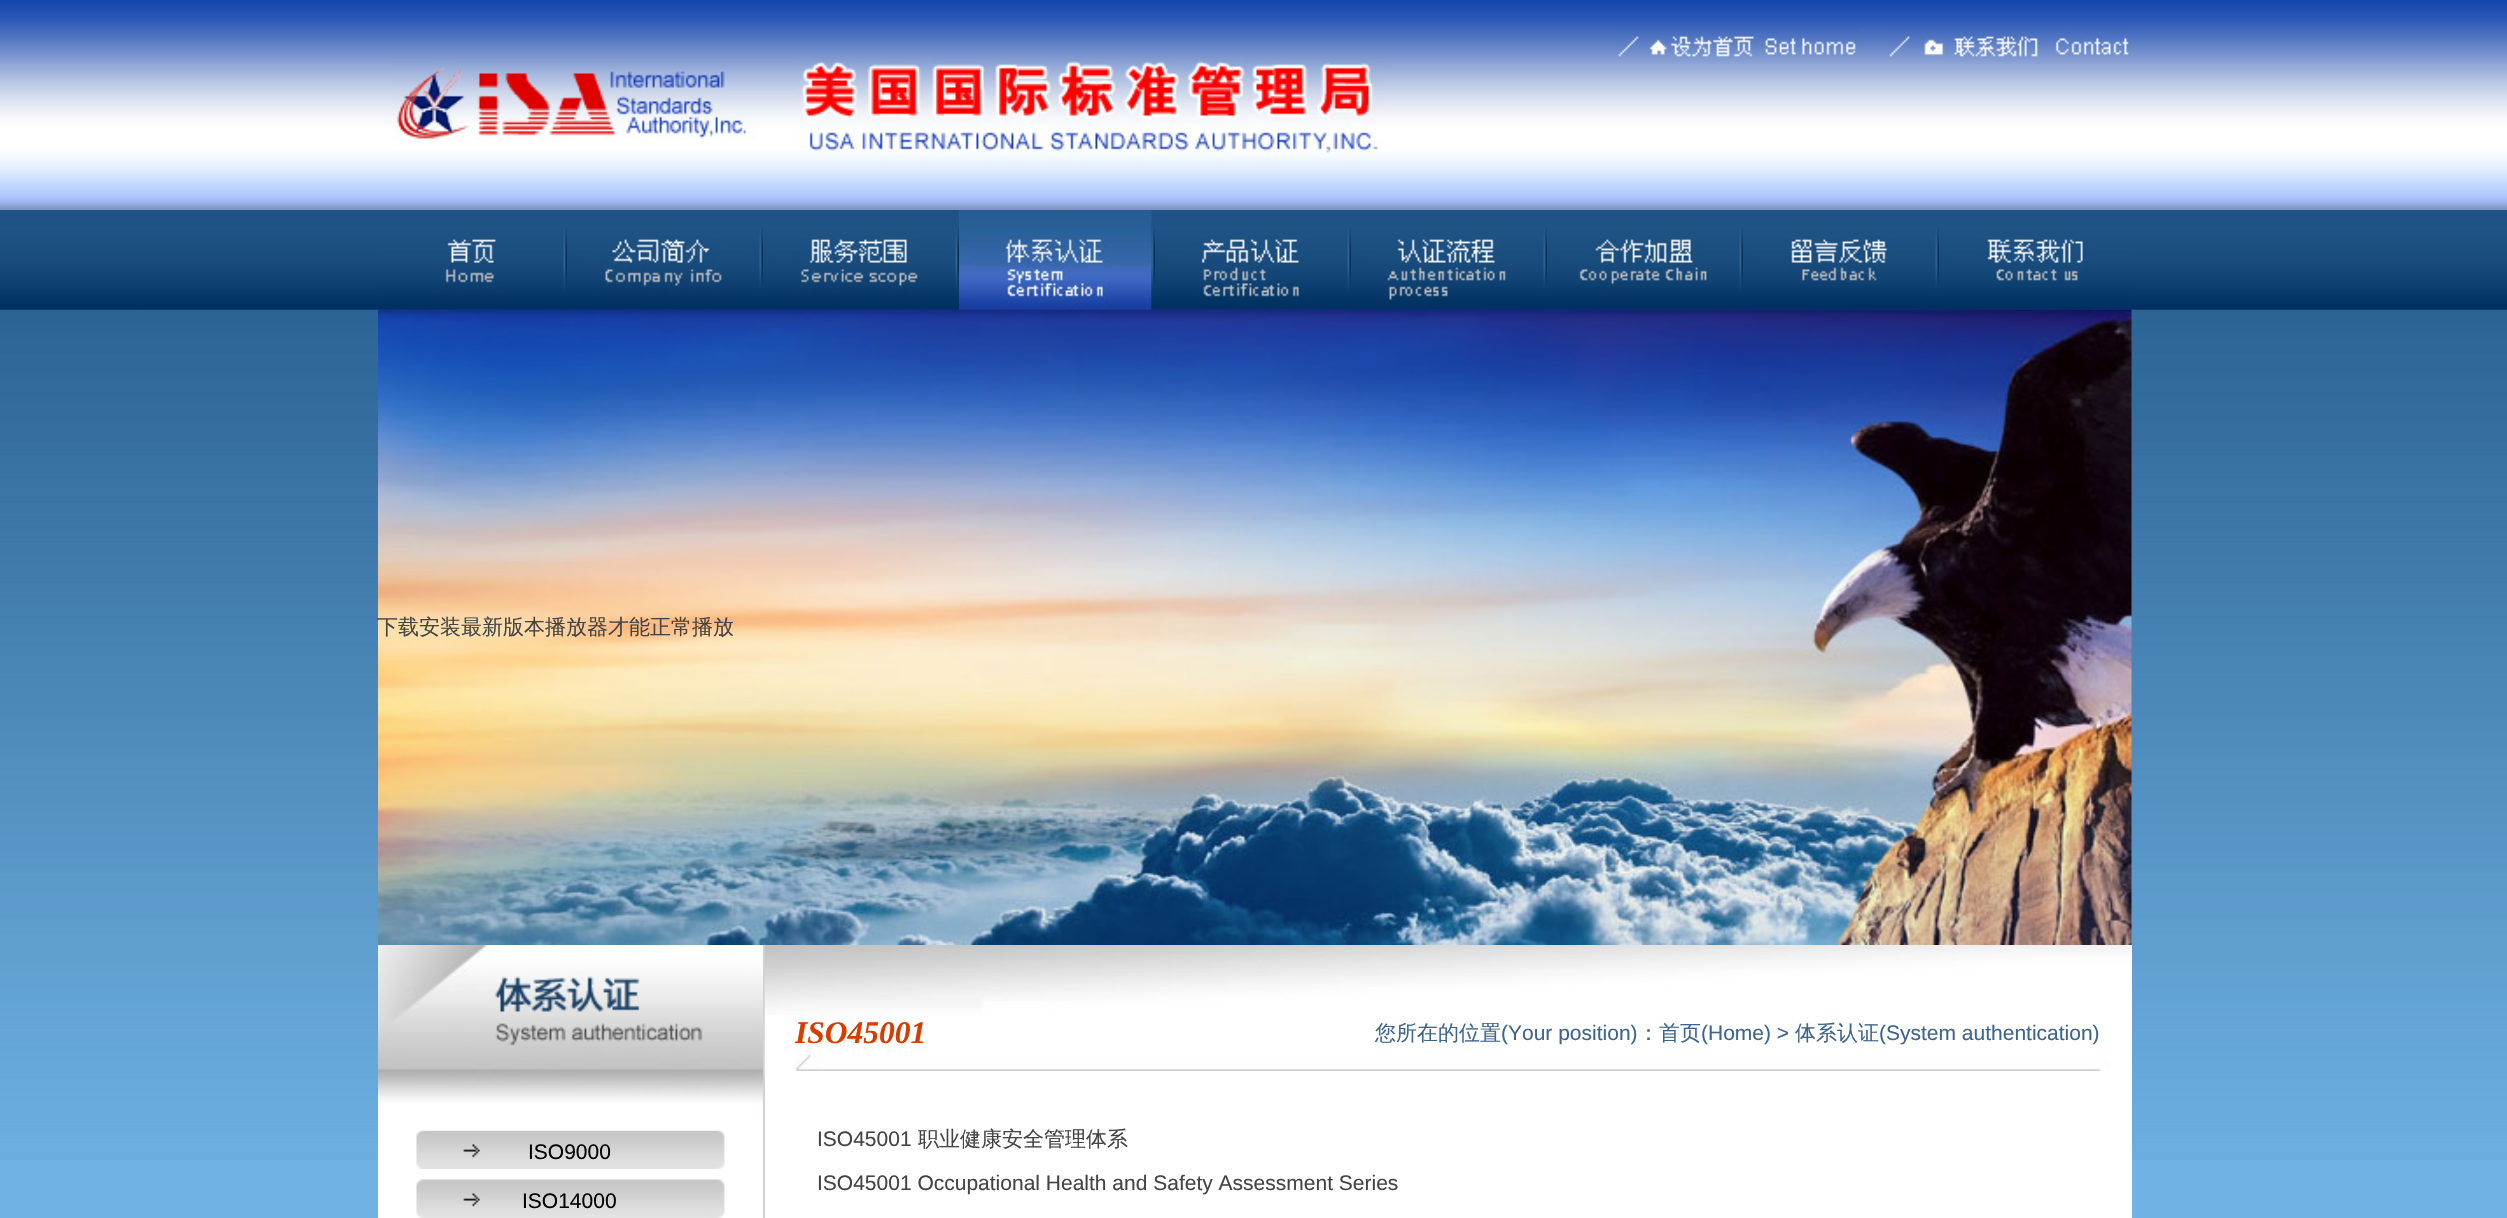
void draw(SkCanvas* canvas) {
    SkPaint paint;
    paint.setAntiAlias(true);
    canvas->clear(0xFF70B2E4);
    canvas->drawImageRect(SkImages::DeferredFromEncodedData(SkData::MakeFromFileName("img1.png")), SkRect::MakeXYWH(0, 309, 2507, 851), SkSamplingOptions());
    canvas->drawImageRect(SkImages::DeferredFromEncodedData(SkData::MakeFromFileName("img2.png")), SkRect::MakeXYWH(0, 0, 2507, 210), SkSamplingOptions());
    canvas->drawImageRect(SkImages::DeferredFromEncodedData(SkData::MakeFromFileName("img3.png")), SkRect::MakeXYWH(1616, 28, 244, 29), SkSamplingOptions());
    canvas->drawImageRect(SkImages::DeferredFromEncodedData(SkData::MakeFromFileName("img4.png")), SkRect::MakeXYWH(1889, 28, 240, 29), SkSamplingOptions());
    canvas->drawImageRect(SkImages::DeferredFromEncodedData(SkData::MakeFromFileName("img5.png")), SkRect::MakeXYWH(392, 56, 993, 98), SkSamplingOptions());
    canvas->drawImageRect(SkImages::DeferredFromEncodedData(SkData::MakeFromFileName("img6.png")), SkRect::MakeXYWH(0, 210, 2507, 100), SkSamplingOptions());
    canvas->drawImageRect(SkImages::DeferredFromEncodedData(SkData::MakeFromFileName("img7.png")), SkRect::MakeXYWH(378, 238, 186, 72), SkSamplingOptions());
    canvas->drawImageRect(SkImages::DeferredFromEncodedData(SkData::MakeFromFileName("img9.png")), SkRect::MakeXYWH(567, 238, 193, 72), SkSamplingOptions());
    canvas->drawImageRect(SkImages::DeferredFromEncodedData(SkData::MakeFromFileName("img11.png")), SkRect::MakeXYWH(763, 238, 193, 72), SkSamplingOptions());
    canvas->drawImageRect(SkImages::DeferredFromEncodedData(SkData::MakeFromFileName("img13.png")), SkRect::MakeXYWH(959, 210, 193, 100), SkSamplingOptions());
    canvas->drawImageRect(SkImages::DeferredFromEncodedData(SkData::MakeFromFileName("img15.png")), SkRect::MakeXYWH(1155, 238, 193, 72), SkSamplingOptions());
    canvas->drawImageRect(SkImages::DeferredFromEncodedData(SkData::MakeFromFileName("img17.png")), SkRect::MakeXYWH(1351, 239, 193, 71), SkSamplingOptions());
    canvas->drawImageRect(SkImages::DeferredFromEncodedData(SkData::MakeFromFileName("img19.png")), SkRect::MakeXYWH(1547, 238, 193, 72), SkSamplingOptions());
    canvas->drawImageRect(SkImages::DeferredFromEncodedData(SkData::MakeFromFileName("img21.png")), SkRect::MakeXYWH(1743, 238, 193, 72), SkSamplingOptions());
    canvas->drawImageRect(SkImages::DeferredFromEncodedData(SkData::MakeFromFileName("img23.png")), SkRect::MakeXYWH(1939, 238, 193, 72), SkSamplingOptions());
    canvas->drawImageRect(SkImages::DeferredFromEncodedData(SkData::MakeFromFileName("img24.png")), SkRect::MakeXYWH(378, 309, 1754, 636), SkSamplingOptions());
    canvas->drawImageRect(SkImages::DeferredFromEncodedData(SkData::MakeFromFileName("img8.png")), SkRect::MakeXYWH(563, 226, 4, 84), SkSamplingOptions());
    canvas->drawImageRect(SkImages::DeferredFromEncodedData(SkData::MakeFromFileName("img10.png")), SkRect::MakeXYWH(759, 226, 4, 84), SkSamplingOptions());
    canvas->drawImageRect(SkImages::DeferredFromEncodedData(SkData::MakeFromFileName("img12.png")), SkRect::MakeXYWH(955, 226, 4, 84), SkSamplingOptions());
    canvas->drawImageRect(SkImages::DeferredFromEncodedData(SkData::MakeFromFileName("img14.png")), SkRect::MakeXYWH(1151, 219, 4, 91), SkSamplingOptions());
    canvas->drawImageRect(SkImages::DeferredFromEncodedData(SkData::MakeFromFileName("img16.png")), SkRect::MakeXYWH(1347, 226, 4, 84), SkSamplingOptions());
    canvas->drawImageRect(SkImages::DeferredFromEncodedData(SkData::MakeFromFileName("img18.png")), SkRect::MakeXYWH(1543, 226, 4, 84), SkSamplingOptions());
    canvas->drawImageRect(SkImages::DeferredFromEncodedData(SkData::MakeFromFileName("img20.png")), SkRect::MakeXYWH(1739, 226, 4, 84), SkSamplingOptions());
    canvas->drawImageRect(SkImages::DeferredFromEncodedData(SkData::MakeFromFileName("img22.png")), SkRect::MakeXYWH(1935, 226, 4, 84), SkSamplingOptions());
    SkFont font1(fontMgr->matchFamilyStyle("WenQuanYi Zen Hei", SkFontStyle(500, SkFontStyle::kNormal_Width, SkFontStyle::kUpright_Slant)), 21);
    font1.setSubpixel(true);
    paint.setColor(0xFF444444);
    canvas->drawString("下载安装最新版本播放器才能正常播放", 377, 634, font1, paint);
    paint.setColor(0xFFFFFFFF);
    canvas->drawRect(SkRect::MakeXYWH(378, 945, 1754, 273), paint);
    canvas->drawImageRect(SkImages::DeferredFromEncodedData(SkData::MakeFromFileName("img26.png")), SkRect::MakeXYWH(416, 1130, 309, 39), SkSamplingOptions());
    canvas->drawImageRect(SkImages::DeferredFromEncodedData(SkData::MakeFromFileName("img25.png")), SkRect::MakeXYWH(378, 945, 385, 186), SkSamplingOptions());
    SkFont font2(fontMgr->matchFamilyStyle("Liberation Sans", SkFontStyle::Normal()), 21);
    font2.setSubpixel(true);
    paint.setColor(0xFF020202);
    canvas->drawString("ISO9000", 528, 1159, font2, paint);
    canvas->drawImageRect(SkImages::DeferredFromEncodedData(SkData::MakeFromFileName("img26.png")), SkRect::MakeXYWH(416, 1179, 309, 39), SkSamplingOptions());
    canvas->drawString("ISO14000", 522, 1208, font2, paint);
    paint.setColor(0xFFD2D2D2);
    canvas->drawRect(SkRect::MakeXYWH(763, 945, 2, 273), paint);
    canvas->drawImageRect(SkImages::DeferredFromEncodedData(SkData::MakeFromFileName("img27.png")), SkRect::MakeXYWH(764, 945, 1368, 126), SkSamplingOptions());
    SkFont font3(fontMgr->matchFamilyStyle("Liberation Serif", SkFontStyle::BoldItalic()), 31.5f);
    font3.setSubpixel(true);
    paint.setColor(0xFFD73D00);
    canvas->drawString("ISO45001", 795, 1043, font3, paint);
    paint.setColor(0xFF3D648D);
    canvas->drawString("您所在的位置", 1375, 1040, font1, paint);
    canvas->drawString("(Your position)", 1501, 1040, font2, paint);
    canvas->drawString("：首页", 1638, 1040, font1, paint);
    canvas->drawString("(Home) >", 1701, 1040, font2, paint);
    canvas->drawString("体系认证", 1795, 1040, font1, paint);
    canvas->drawString("(System authentication)", 1879, 1040, font2, paint);
    paint.setColor(0xFF444444);
    canvas->drawString("ISO45001", 817, 1146, font2, paint);
    canvas->drawString("职业健康安全管理体系", 918, 1146, font1, paint);
    canvas->drawString("ISO45001 Occupational Health and Safety Assessment Series", 817, 1190, font2, paint);
}
